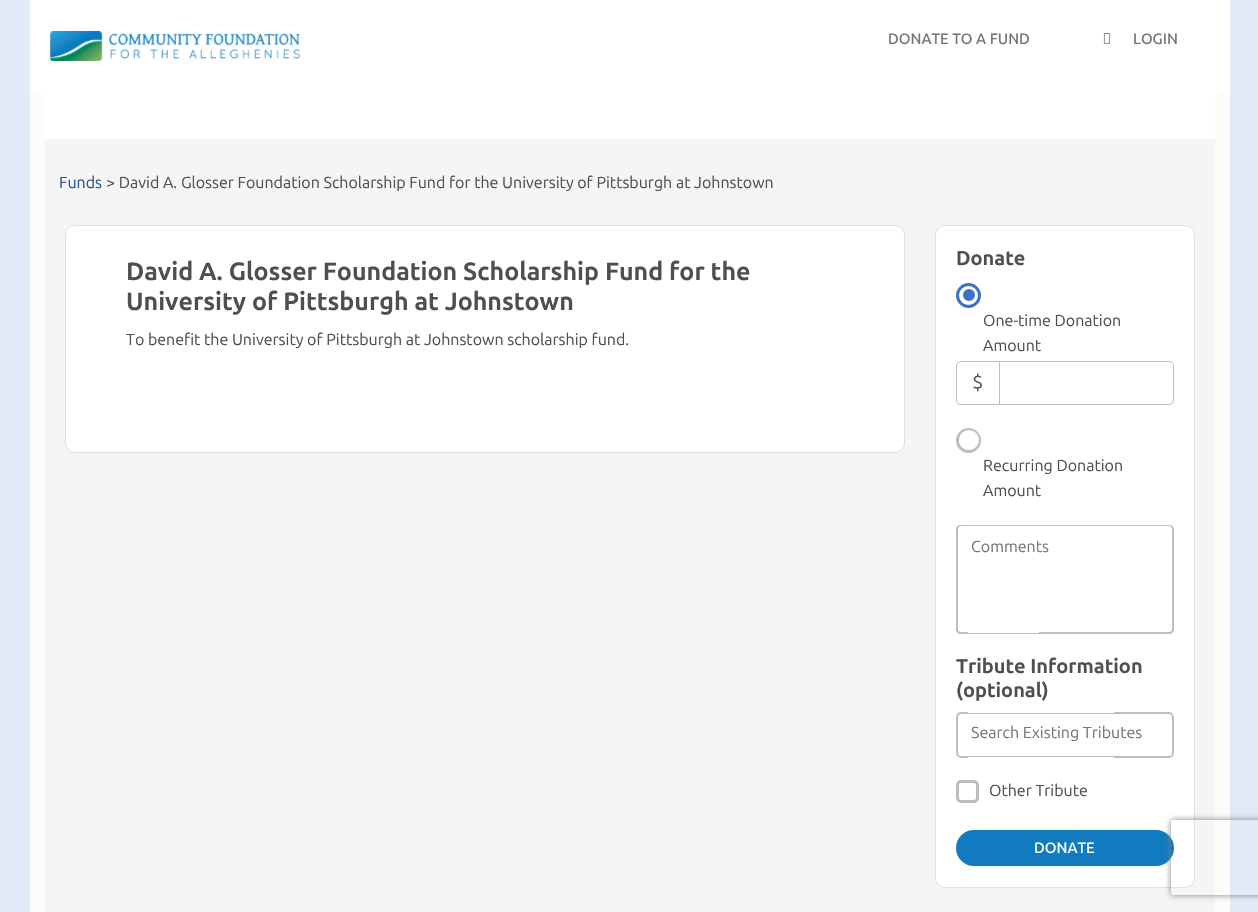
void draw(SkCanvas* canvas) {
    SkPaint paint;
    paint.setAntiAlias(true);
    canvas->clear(0xFFE2EAF7);
    paint.setColor(0xFFFCFCFC);
    canvas->drawRect(SkRect::MakeXYWH(30, 94, 1200, 818), paint);
    paint.setColor(0xFFFFFFFF);
    canvas->drawRect(SkRect::MakeXYWH(30, 0, 1200, 94), paint);
    canvas->drawImageRect(SkImages::DeferredFromEncodedData(SkData::MakeFromFileName("img1.png")), SkRect::MakeXYWH(50, 31, 250, 30), SkSamplingOptions());
    SkFont font1(fontMgr->matchFamilyStyle("Ubuntu", SkFontStyle(500, SkFontStyle::kNormal_Width, SkFontStyle::kUpright_Slant)), 15);
    font1.setSubpixel(true);
    paint.setColor(0xFF757575);
    canvas->drawString("DONATE TO A FUND", 888, 44, font1, paint);
    canvas->drawImageRect(SkImages::DeferredFromEncodedData(SkData::MakeFromFileName("img2.png")), SkRect::MakeXYWH(1103, 33, 8, 11), SkSamplingOptions());
    canvas->drawString("LOGIN", 1133, 44, font1, paint);
    paint.setColor(0xFFFFFFFF);
    canvas->drawRect(SkRect::MakeXYWH(45, 94, 1170, 45), paint);
    paint.setColor(0xFFF5F5F5);
    canvas->drawRect(SkRect::MakeXYWH(45, 139, 1170, 773), paint);
    SkFont font2(fontMgr->matchFamilyStyle("Ubuntu", SkFontStyle::Normal()), 16);
    font2.setSubpixel(true);
    paint.setColor(0xFF274F91);
    canvas->drawString("Funds", 59, 188, font2, paint);
    paint.setColor(0xFF4F4F4F);
    canvas->drawString("> David A. Glosser Foundation Scholarship Fund for the University of Pittsburgh at Johnstown", 106, 188, font2, paint);
    paint.setColor(0xFFFFFFFF);
    canvas->drawRoundRect(SkRect::MakeXYWH(65.5f, 225.5f, 839, 227), 9.5f, 9.5f, paint);
    paint.setStyle(SkPaint::kStroke_Style);
    paint.setStrokeWidth(1);
    paint.setColor(0xFFE0E0E0);
    canvas->drawRoundRect(SkRect::MakeXYWH(65.5f, 225.5f, 839, 227), 9.5f, 9.5f, paint);
    SkFont font3(fontMgr->matchFamilyStyle("Ubuntu", SkFontStyle::Bold()), 25);
    font3.setSubpixel(true);
    paint.setStyle(SkPaint::kFill_Style);
    paint.setColor(0xFF4F4F4F);
    canvas->drawString("David A. Glosser Foundation Scholarship Fund for the", 126, 280, font3, paint);
    canvas->drawString("University of Pittsburgh at Johnstown", 126, 310, font3, paint);
    canvas->drawString("To benefit the University of Pittsburgh at Johnstown scholarship fund.", 126, 345, font2, paint);
    paint.setColor(0xFFFFFFFF);
    canvas->drawRoundRect(SkRect::MakeXYWH(935.5f, 225.5f, 259, 662), 9.5f, 9.5f, paint);
    paint.setStyle(SkPaint::kStroke_Style);
    paint.setColor(0xFFE0E0E0);
    canvas->drawRoundRect(SkRect::MakeXYWH(935.5f, 225.5f, 259, 662), 9.5f, 9.5f, paint);
    SkFont font4(fontMgr->matchFamilyStyle("Ubuntu", SkFontStyle::Bold()), 20);
    font4.setSubpixel(true);
    paint.setStyle(SkPaint::kFill_Style);
    paint.setColor(0xFF4F4F4F);
    canvas->drawString("Donate", 956, 265, font4, paint);
    paint.setStyle(SkPaint::kStroke_Style);
    paint.setStrokeWidth(3);
    paint.setColor(0xFF3B71CA);
    canvas->drawCircle(968.5f, 295.5f, 11, paint);
    paint.setStyle(SkPaint::kFill_Style);
    canvas->drawCircle(969, 295, 6, paint);
    paint.setColor(0xFF4F4F4F);
    canvas->drawString("One-time Donation", 983, 326, font2, paint);
    canvas->drawString("Amount", 983, 351, font2, paint);
    paint.setStyle(SkPaint::kStroke_Style);
    paint.setStrokeWidth(1);
    paint.setColor(0xFFBDBDBD);
    canvas->drawPath(SkPathBuilder().moveTo(961, 361.5f).lineTo(999.5f, 361.5f).lineTo(999.5f, 404.5f).lineTo(961, 404.5f).cubicTo(958.5f, 404.5f, 956.5f, 402.5f, 956.5f, 400).lineTo(956.5f, 366).cubicTo(956.5f, 363.5f, 958.5f, 361.5f, 961, 361.5f).close().detach(), paint);
    SkFont font5(fontMgr->matchFamilyStyle("Ubuntu", SkFontStyle::Normal()), 20);
    font5.setSubpixel(true);
    paint.setStyle(SkPaint::kFill_Style);
    paint.setColor(0xFF4F4F4F);
    canvas->drawString("$", 972, 389, font5, paint);
    paint.setStyle(SkPaint::kStroke_Style);
    paint.setColor(0xFFBDBDBD);
    canvas->drawPath(SkPathBuilder().moveTo(999.5f, 361.5f).lineTo(1169, 361.5f).cubicTo(1171.5f, 361.5f, 1173.5f, 363.5f, 1173.5f, 366).lineTo(1173.5f, 400).cubicTo(1173.5f, 402.5f, 1171.5f, 404.5f, 1169, 404.5f).lineTo(999.5f, 404.5f).close().detach(), paint);
    paint.setStrokeWidth(3);
    canvas->drawCircle(968.5f, 440.5f, 11, paint);
    paint.setStyle(SkPaint::kFill_Style);
    paint.setColor(0xFFFFFFFF);
    canvas->drawCircle(969, 440, 10, paint);
    paint.setColor(0xFF4F4F4F);
    canvas->drawString("Recurring Donation", 983, 471, font2, paint);
    canvas->drawString("Amount", 983, 496, font2, paint);
    paint.setColor(0xFFBDBDBD);
    canvas->drawPath(SkPathBuilder(SkPathFillType::kEvenOdd).moveTo(961, 525).lineTo(968, 525).lineTo(968, 634).lineTo(961, 634).cubicTo(958, 634, 956, 632, 956, 629).lineTo(956, 530).cubicTo(956, 527, 958, 525, 961, 525).close().moveTo(961, 526).lineTo(968, 526).lineTo(968, 632).lineTo(961, 632).cubicTo(959, 632, 958, 631, 958, 629).lineTo(958, 530).cubicTo(958, 528, 959, 526, 961, 526).close().detach(), paint);
    canvas->drawRect(SkRect::MakeXYWH(968, 525, 71, 1), paint);
    canvas->drawRect(SkRect::MakeXYWH(968, 633, 71, 1), paint);
    paint.setColor(0xFF757575);
    canvas->drawString("Comments", 971, 552, font2, paint);
    paint.setColor(0xFFBDBDBD);
    canvas->drawPath(SkPathBuilder(SkPathFillType::kEvenOdd).moveTo(1039, 525).lineTo(1169, 525).cubicTo(1172, 525, 1174, 527, 1174, 530).lineTo(1174, 629).cubicTo(1174, 632, 1172, 634, 1169, 634).lineTo(1039, 634).close().moveTo(1039, 526).lineTo(1169, 526).cubicTo(1171, 526, 1172, 528, 1172, 530).lineTo(1172, 629).cubicTo(1172, 631, 1171, 632, 1169, 632).lineTo(1039, 632).close().detach(), paint);
    paint.setColor(0xFF4F4F4F);
    canvas->drawString("Tribute Information", 956, 673, font4, paint);
    canvas->drawString("(optional)", 956, 697, font4, paint);
    paint.setColor(0xFFBDBDBD);
    canvas->drawPath(SkPathBuilder(SkPathFillType::kEvenOdd).moveTo(961, 712).lineTo(968, 712).lineTo(968, 758).lineTo(961, 758).cubicTo(958, 758, 956, 755, 956, 752).lineTo(956, 718).cubicTo(956, 715, 958, 712, 961, 712).close().moveTo(961, 714).lineTo(968, 714).lineTo(968, 756).lineTo(961, 756).cubicTo(959, 756, 958, 755, 958, 752).lineTo(958, 718).cubicTo(958, 715, 959, 714, 961, 714).close().detach(), paint);
    canvas->drawRect(SkRect::MakeXYWH(968, 713, 146, 1), paint);
    canvas->drawRect(SkRect::MakeXYWH(968, 756, 146, 1), paint);
    paint.setColor(0xFF757575);
    canvas->drawString("Search Existing Tributes", 971, 738, font2, paint);
    paint.setColor(0xFFBDBDBD);
    canvas->drawPath(SkPathBuilder(SkPathFillType::kEvenOdd).moveTo(1114, 712).lineTo(1169, 712).cubicTo(1172, 712, 1174, 715, 1174, 718).lineTo(1174, 752).cubicTo(1174, 755, 1172, 758, 1169, 758).lineTo(1114, 758).close().moveTo(1114, 714).lineTo(1169, 714).cubicTo(1171, 714, 1172, 715, 1172, 718).lineTo(1172, 752).cubicTo(1172, 755, 1171, 756, 1169, 756).lineTo(1114, 756).close().detach(), paint);
    paint.setStyle(SkPaint::kStroke_Style);
    canvas->drawRoundRect(SkRect::MakeXYWH(957.5f, 781.5f, 20, 20), 3.5f, 3.5f, paint);
    paint.setStyle(SkPaint::kFill_Style);
    paint.setColor(0xFF4F4F4F);
    canvas->drawString("Other Tribute", 989, 796, font2, paint);
    paint.setColor(0xFF117BC0);
    canvas->drawRoundRect(SkRect::MakeXYWH(956, 830, 218, 36), 18, 18, paint);
    paint.setColor(0xFFFFFFFF);
    canvas->drawString("DONATE", 1034, 853, font1, paint);
    canvas->save();
    canvas->clipPath(SkPathBuilder(SkPathFillType::kEvenOdd).moveTo(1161, 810).lineTo(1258, 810).lineTo(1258, 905).lineTo(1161, 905).close().moveTo(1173.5f, 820).lineTo(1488.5f, 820).cubicTo(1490, 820, 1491, 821, 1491, 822.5f).lineTo(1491, 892.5f).cubicTo(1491, 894, 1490, 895, 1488.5f, 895).lineTo(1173.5f, 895).cubicTo(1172, 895, 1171, 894, 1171, 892.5f).lineTo(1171, 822.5f).cubicTo(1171, 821, 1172, 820, 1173.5f, 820).close().detach(), true);
    paint.setColor(0xFF808080);
    paint.setMaskFilter(SkMaskFilter::MakeBlur(kNormal_SkBlurStyle, 3));
    canvas->drawRoundRect(SkRect::MakeXYWH(1171, 820, 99, 75), 2.5f, 2.5f, paint);
    paint.setMaskFilter(nullptr);
    canvas->restore();
}
